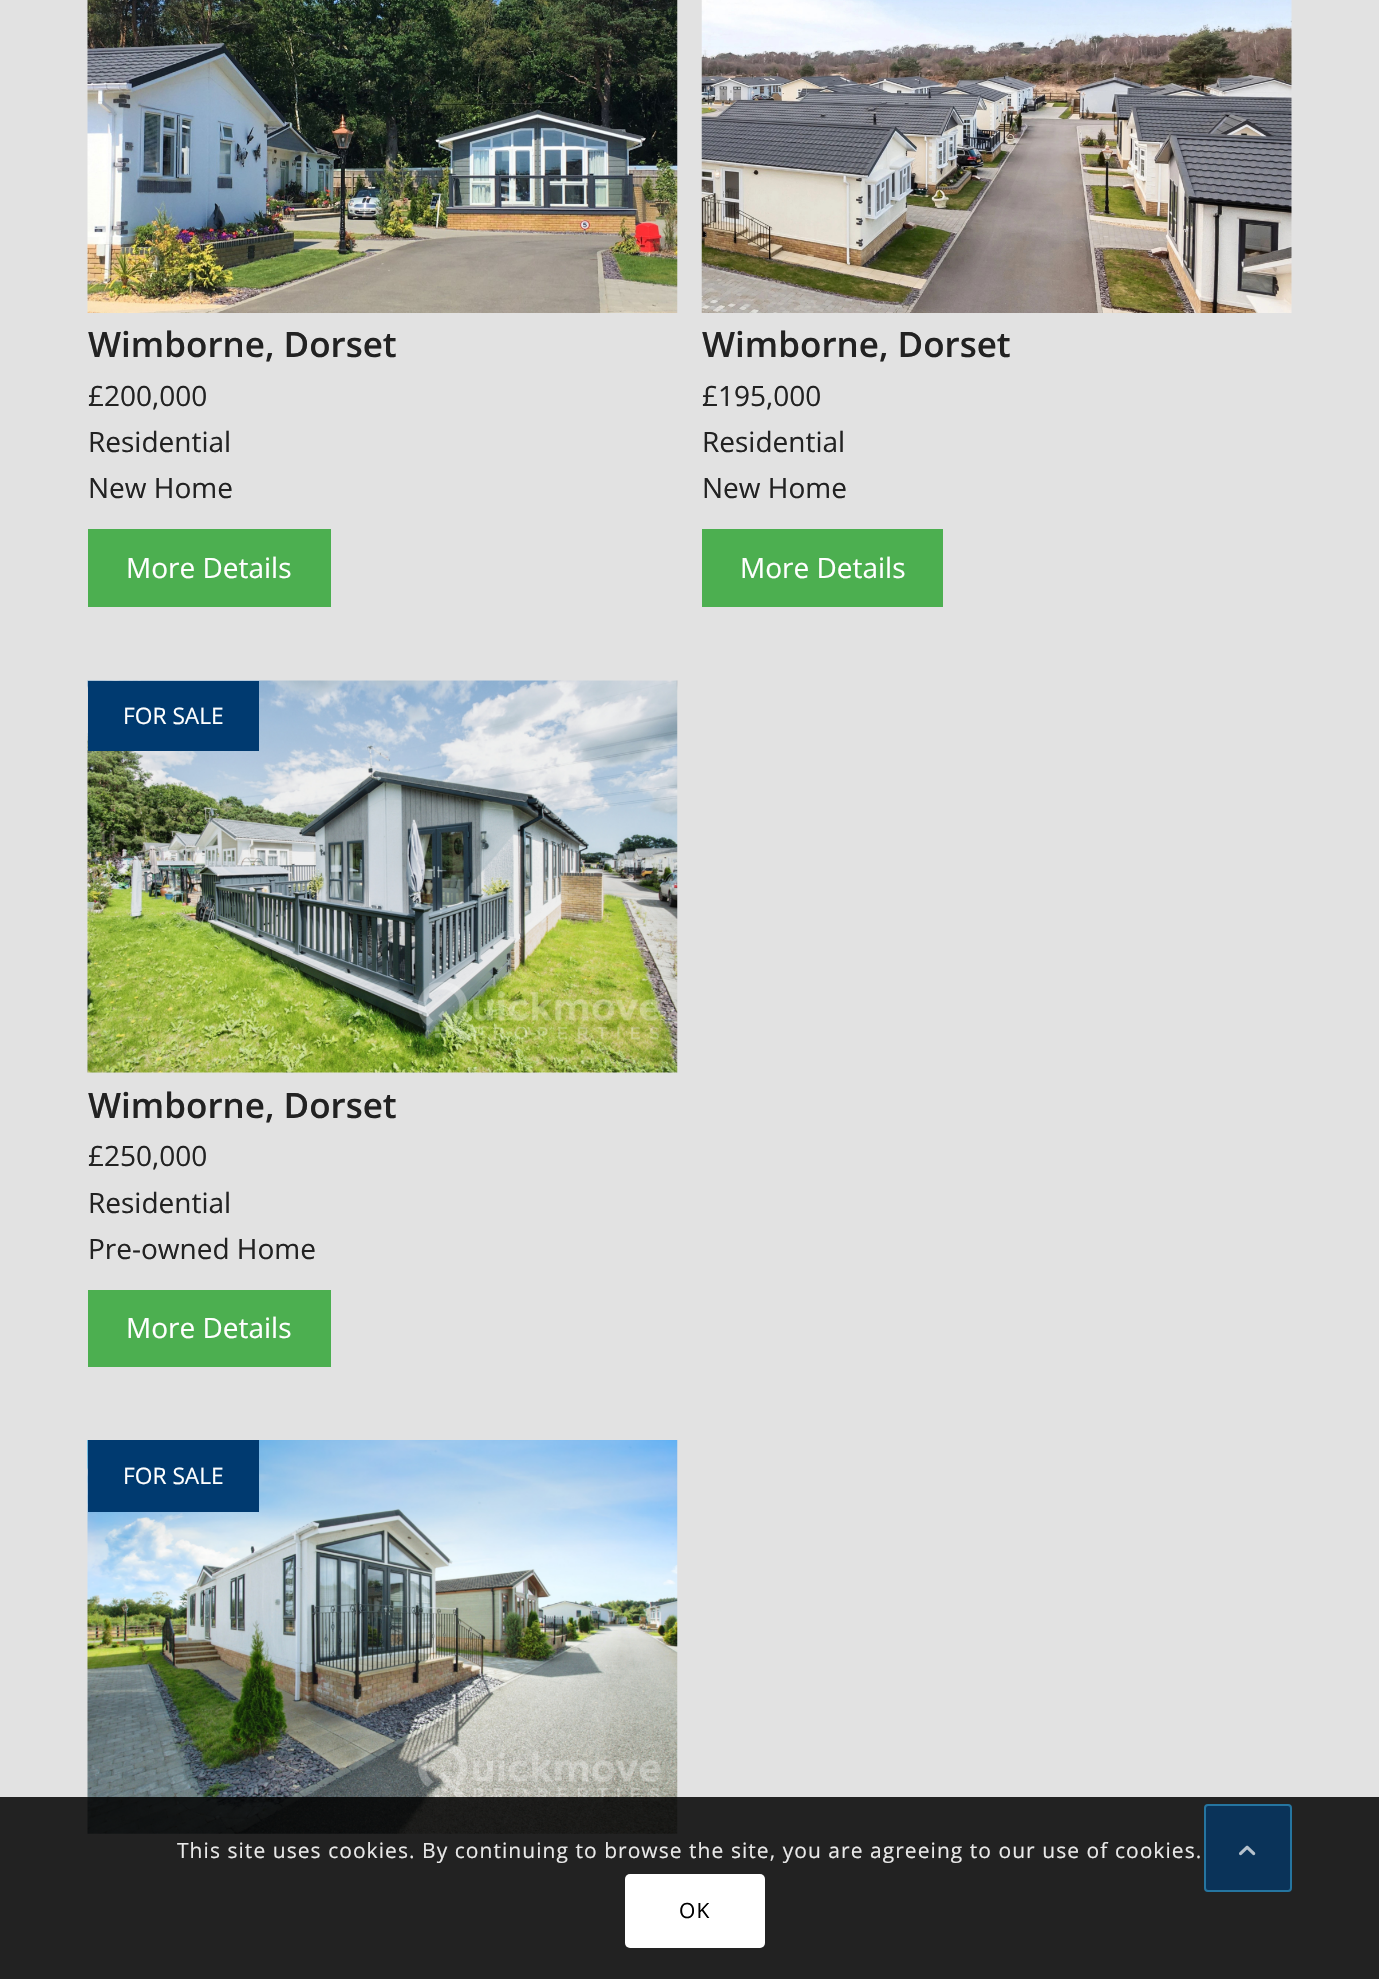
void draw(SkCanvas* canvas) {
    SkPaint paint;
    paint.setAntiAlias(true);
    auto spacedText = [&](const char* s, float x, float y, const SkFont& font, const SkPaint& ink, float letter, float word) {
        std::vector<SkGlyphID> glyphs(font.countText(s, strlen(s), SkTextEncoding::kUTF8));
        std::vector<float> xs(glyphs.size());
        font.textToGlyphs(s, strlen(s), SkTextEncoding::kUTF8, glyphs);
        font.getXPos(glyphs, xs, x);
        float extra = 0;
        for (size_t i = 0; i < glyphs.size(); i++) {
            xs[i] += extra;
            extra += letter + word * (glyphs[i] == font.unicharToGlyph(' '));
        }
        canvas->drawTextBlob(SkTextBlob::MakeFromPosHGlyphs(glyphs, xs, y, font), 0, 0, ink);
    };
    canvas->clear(0xFFE2E2E2);
    canvas->drawImageRect(SkImages::DeferredFromEncodedData(SkData::MakeFromFileName("img1.png")), SkRect::MakeXYWH(87, 0, 591, 313), SkSamplingOptions());
    SkFont font1(fontMgr->matchFamilyStyle("Open Sans", SkFontStyle(600, SkFontStyle::kNormal_Width, SkFontStyle::kUpright_Slant)), 35);
    font1.setSubpixel(true);
    paint.setColor(0xFF222222);
    canvas->drawString("Wimborne, Dorset", 88, 357, font1, paint);
    SkFont font2(fontMgr->matchFamilyStyle("Open Sans", SkFontStyle::Normal()), 28);
    font2.setSubpixel(true);
    canvas->drawString("£200,000", 88, 406, font2, paint);
    canvas->drawString("Residential", 88, 452, font2, paint);
    canvas->drawString("New Home", 88, 498, font2, paint);
    paint.setColor(0xFF4CAF50);
    canvas->drawRect(SkRect::MakeXYWH(88, 529, 243, 78), paint);
    paint.setColor(0xFFFFFFFF);
    canvas->drawString("More Details", 126, 578, font2, paint);
    canvas->drawImageRect(SkImages::DeferredFromEncodedData(SkData::MakeFromFileName("img2.png")), SkRect::MakeXYWH(701, 0, 591, 313), SkSamplingOptions());
    paint.setColor(0xFF222222);
    canvas->drawString("Wimborne, Dorset", 702, 357, font1, paint);
    canvas->drawString("£195,000", 702, 406, font2, paint);
    canvas->drawString("Residential", 702, 452, font2, paint);
    canvas->drawString("New Home", 702, 498, font2, paint);
    paint.setColor(0xFF4CAF50);
    canvas->drawRect(SkRect::MakeXYWH(702, 529, 241, 78), paint);
    paint.setColor(0xFFFFFFFF);
    canvas->drawString("More Details", 740, 578, font2, paint);
    canvas->drawImageRect(SkImages::DeferredFromEncodedData(SkData::MakeFromFileName("img3.png")), SkRect::MakeXYWH(87, 680, 591, 393), SkSamplingOptions());
    paint.setColor(0xFF003A70);
    canvas->drawRect(SkRect::MakeXYWH(88, 681, 171, 70), paint);
    SkFont font3(fontMgr->matchFamilyStyle("Open Sans", SkFontStyle::Normal()), 22.75f);
    font3.setSubpixel(true);
    paint.setColor(0xFFFFFFFF);
    canvas->drawString("FOR SALE", 123, 724, font3, paint);
    paint.setColor(0xFF222222);
    canvas->drawString("Wimborne, Dorset", 88, 1118, font1, paint);
    canvas->drawString("£250,000", 88, 1166, font2, paint);
    canvas->drawString("Residential", 88, 1213, font2, paint);
    canvas->drawString("Pre-owned Home", 88, 1259, font2, paint);
    paint.setColor(0xFF4CAF50);
    canvas->drawRect(SkRect::MakeXYWH(88, 1290, 243, 77), paint);
    paint.setColor(0xFFFFFFFF);
    canvas->drawString("More Details", 126, 1338, font2, paint);
    canvas->drawImageRect(SkImages::DeferredFromEncodedData(SkData::MakeFromFileName("img4.png")), SkRect::MakeXYWH(87, 1440, 591, 394), SkSamplingOptions());
    paint.setColor(0xFF003A70);
    canvas->drawRect(SkRect::MakeXYWH(88, 1440, 171, 72), paint);
    paint.setColor(0xFFFFFFFF);
    canvas->drawString("FOR SALE", 123, 1484, font3, paint);
    paint.setColor(0xD9000000);
    canvas->drawRect(SkRect::MakeXYWH(0, 1797, 1379, 182), paint);
    SkFont font4(fontMgr->matchFamilyStyle("Open Sans", SkFontStyle::Normal()), 21);
    font4.setSubpixel(true);
    paint.setColor(0xFFE9E9E9);
    spacedText("This site uses cookies. By continuing to browse the site, you are agreeing to our use of cookies.", 177, 1858, font4, paint, 1.05f, 0);
    paint.setColor(0xFFFFFFFF);
    canvas->drawRoundRect(SkRect::MakeXYWH(625, 1874, 140, 74), 5, 5, paint);
    paint.setColor(0xFF000000);
    spacedText("OK", 679, 1918, font4, paint, 1.05f, 0);
    paint.setColor(0xFF0A3359);
    canvas->drawRoundRect(SkRect::MakeXYWH(1205, 1805, 86, 86), 3, 3, paint);
    paint.setStyle(SkPaint::kStroke_Style);
    paint.setStrokeWidth(2);
    paint.setColor(0xFF2575A0);
    canvas->drawRoundRect(SkRect::MakeXYWH(1205, 1805, 86, 86), 3, 3, paint);
    canvas->drawImageRect(SkImages::DeferredFromEncodedData(SkData::MakeFromFileName("img5.png")), SkRect::MakeXYWH(1239, 1845, 17, 11), SkSamplingOptions());
}
